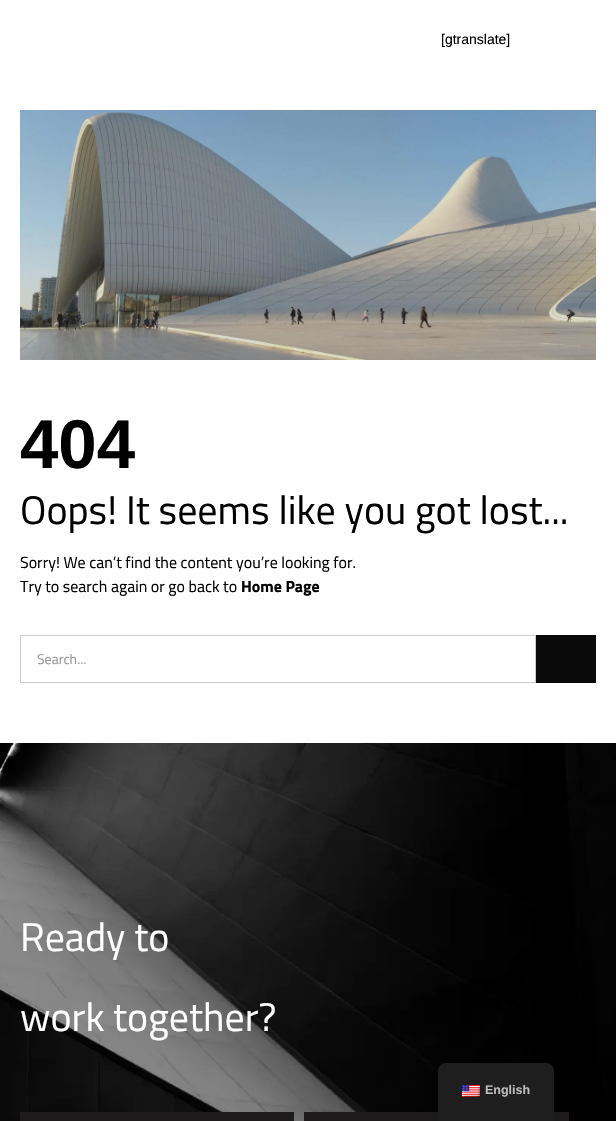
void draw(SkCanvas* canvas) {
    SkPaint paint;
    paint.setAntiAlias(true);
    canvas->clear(0xFFFFFFFF);
    SkFont font1(fontMgr->matchFamilyStyle("Liberation Sans", SkFontStyle::Normal()), 14);
    font1.setSubpixel(true);
    paint.setColor(0xFF000000);
    canvas->drawString("[gtranslate]", 441, 44, font1, paint);
    canvas->drawImageRect(SkImages::DeferredFromEncodedData(SkData::MakeFromFileName("img1.png")), SkRect::MakeXYWH(20, 110, 576, 250), SkSamplingOptions());
    SkFont font2(fontMgr->matchFamilyStyle("Liberation Sans", SkFontStyle::Bold()), 69);
    font2.setSubpixel(true);
    canvas->drawString("404", 20, 468, font2, paint);
    SkFont font3(fontMgr->matchFamilyStyle("Titillium Web", SkFontStyle::Normal()), 40);
    font3.setSubpixel(true);
    canvas->drawString("Oops! It seems like you got lost...", 20, 524, font3, paint);
    SkFont font4(fontMgr->matchFamilyStyle("Titillium Web", SkFontStyle::Normal()), 16);
    font4.setSubpixel(true);
    canvas->drawString("Sorry! We can’t find the content you’re looking for.", 20, 568, font4, paint);
    canvas->drawString("Try to search again or go back to", 20, 592, font4, paint);
    SkFont font5(fontMgr->matchFamilyStyle("Titillium Web", SkFontStyle::Bold()), 16);
    font5.setSubpixel(true);
    canvas->drawString("Home Page", 241, 592, font5, paint);
    paint.setStyle(SkPaint::kStroke_Style);
    paint.setStrokeWidth(1);
    paint.setColor(0xFFCCCCCC);
    canvas->drawRect(SkRect::MakeXYWH(20.5f, 635.5f, 515, 47), paint);
    SkFont font6(fontMgr->matchFamilyStyle("Titillium Web", SkFontStyle::Normal()), 14);
    font6.setSubpixel(true);
    paint.setStyle(SkPaint::kFill_Style);
    paint.setColor(0xFF959595);
    canvas->drawString("Search...", 37, 664, font6, paint);
    paint.setColor(0xFF0A0909);
    canvas->drawRect(SkRect::MakeXYWH(536, 635, 60, 48), paint);
    canvas->drawImageRect(SkImages::DeferredFromEncodedData(SkData::MakeFromFileName("img2.png")), SkRect::MakeXYWH(0, 743, 616, 378), SkSamplingOptions());
    paint.setColor(0xFFFFFFFF);
    canvas->drawString("Ready to", 20, 951, font3, paint);
    canvas->drawString("work", 20, 1031, font3, paint);
    canvas->drawString("together?", 113, 1031, font3, paint);
    paint.setColor(0xFF1C1A1A);
    canvas->drawRect(SkRect::MakeXYWH(20, 1112, 274, 9), paint);
    canvas->drawRect(SkRect::MakeXYWH(304, 1112, 265, 9), paint);
    paint.setColor(0xFF1E1E1E);
    canvas->drawPath(SkPathBuilder().moveTo(446, 1063).lineTo(546, 1063).cubicTo(550.5f, 1063, 554, 1066.5f, 554, 1071).lineTo(554, 1121).lineTo(438, 1121).lineTo(438, 1071).cubicTo(438, 1066.5f, 441.5f, 1063, 446, 1063).close().detach(), paint);
    canvas->drawImageRect(SkImages::DeferredFromEncodedData(SkData::MakeFromFileName("img3.png")), SkRect::MakeXYWH(462, 1085, 18, 12), SkSamplingOptions());
    SkFont font7(fontMgr->matchFamilyStyle("Liberation Sans", SkFontStyle::Bold()), 12.5f);
    font7.setSubpixel(true);
    paint.setColor(0xFFBDBDBD);
    canvas->drawString("English", 485, 1094, font7, paint);
}
